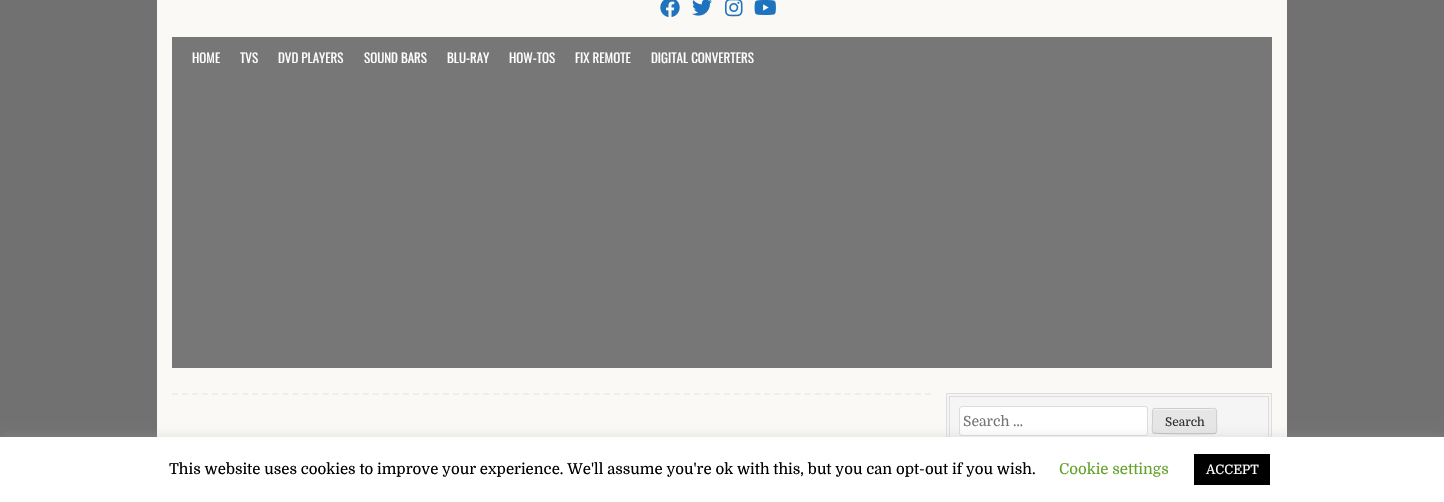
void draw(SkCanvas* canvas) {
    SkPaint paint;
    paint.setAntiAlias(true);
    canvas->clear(0xFF717171);
    paint.setColor(0xFFFAF9F5);
    canvas->drawRect(SkRect::MakeXYWH(157, 0, 1130, 437), paint);
    canvas->drawImageRect(SkImages::DeferredFromEncodedData(SkData::MakeFromFileName("img1.png")), SkRect::MakeXYWH(660, 0, 20, 17), SkSamplingOptions());
    canvas->drawImageRect(SkImages::DeferredFromEncodedData(SkData::MakeFromFileName("img2.png")), SkRect::MakeXYWH(692, 0, 20, 16), SkSamplingOptions());
    canvas->drawImageRect(SkImages::DeferredFromEncodedData(SkData::MakeFromFileName("img3.png")), SkRect::MakeXYWH(725, 0, 18, 17), SkSamplingOptions());
    canvas->drawImageRect(SkImages::DeferredFromEncodedData(SkData::MakeFromFileName("img4.png")), SkRect::MakeXYWH(754, 0, 22, 15), SkSamplingOptions());
    paint.setColor(0xFF777777);
    canvas->drawRect(SkRect::MakeXYWH(172, 37, 1100, 331), paint);
    SkFont font1(fontMgr->matchFamilyStyle("Oswald", SkFontStyle::Normal()), 13);
    font1.setSubpixel(true);
    paint.setColor(0xFFFFFFFF);
    canvas->drawString("HOME", 192, 63, font1, paint);
    canvas->drawString("TVS", 240, 63, font1, paint);
    canvas->drawString("DVD PLAYERS", 278, 63, font1, paint);
    canvas->drawString("SOUND BARS", 364, 63, font1, paint);
    canvas->drawString("BLU-RAY", 447, 63, font1, paint);
    canvas->drawString("HOW-TOS", 509, 63, font1, paint);
    canvas->drawString("FIX REMOTE", 575, 63, font1, paint);
    canvas->drawString("DIGITAL CONVERTERS", 651, 63, font1, paint);
    paint.setStyle(SkPaint::kStroke_Style);
    paint.setStrokeWidth(2);
    paint.setColor(0xFFEEEEEE);
    paint.setPathEffect(SkDashPathEffect::Make({{6, 4.04f}}, 0));
    canvas->drawPath(SkPathBuilder().moveTo(172, 394).lineTo(931, 394).detach(), paint);
    paint.setPathEffect(nullptr);
    paint.setStyle(SkPaint::kFill_Style);
    paint.setColor(0xFFF5F5F5);
    canvas->drawRect(SkRect::MakeXYWH(947, 394, 324, 43), paint);
    paint.setStyle(SkPaint::kStroke_Style);
    paint.setStrokeWidth(1);
    paint.setColor(0xFFDDDDDD);
    canvas->drawRect(SkRect::MakeXYWH(946.5f, 393.5f, 325, 55), paint);
    canvas->drawRect(SkRect::MakeXYWH(949.5f, 396.5f, 319, 49), paint);
    paint.setStyle(SkPaint::kFill_Style);
    paint.setColor(0xFFFFFFFF);
    canvas->drawRoundRect(SkRect::MakeXYWH(959.5f, 406.5f, 188, 29), 2.5f, 2.5f, paint);
    paint.setStyle(SkPaint::kStroke_Style);
    paint.setColor(0xFFDDDDDD);
    canvas->drawRoundRect(SkRect::MakeXYWH(959.5f, 406.5f, 188, 29), 2.5f, 2.5f, paint);
    SkFont font2(fontMgr->matchFamilyStyle("Domine", SkFontStyle::Normal()), 14);
    font2.setSubpixel(true);
    paint.setStyle(SkPaint::kFill_Style);
    paint.setColor(0xFF757575);
    canvas->drawString("Search …", 963, 426, font2, paint);
    paint.setColor(0xFFE6E6E6);
    canvas->drawRoundRect(SkRect::MakeXYWH(1152, 408, 65, 26), 3, 3, paint);
    paint.setColor(0xFFF3F3F3);
    canvas->drawPath(SkPathBuilder().moveTo(1155, 410).lineTo(1214, 410).cubicTo(1215, 410, 1216, 411, 1216, 412).cubicTo(1216, 406, 1208, 409, 1204, 409).lineTo(1165, 409).cubicTo(1161, 409, 1153, 406, 1153, 412).cubicTo(1153, 411, 1154, 410, 1155, 410).close().detach(), paint);
    paint.setStyle(SkPaint::kStroke_Style);
    paint.setColor(0xFFBBBBBB);
    canvas->drawPath(SkPathBuilder().moveTo(1216, 433).lineTo(1214, 433.5f).cubicTo(1209, 434, 1154.5f, 434, 1153.5f, 433).lineTo(1153, 433).detach(), paint);
    paint.setColor(0xFFCCCCCC);
    canvas->drawPath(SkPathBuilder().moveTo(1153, 433).cubicTo(1151.5f, 431, 1152.5f, 423.5f, 1152.5f, 421).cubicTo(1152.5f, 406.5f, 1150, 408.5f, 1165, 408.5f).lineTo(1204, 408.5f).cubicTo(1219, 408.5f, 1216.5f, 406.5f, 1216.5f, 421).cubicTo(1216.5f, 423.5f, 1217.5f, 431, 1216, 433).detach(), paint);
    SkFont font3(fontMgr->matchFamilyStyle("Domine", SkFontStyle::Normal()), 12);
    font3.setSubpixel(true);
    paint.setStyle(SkPaint::kFill_Style);
    paint.setColor(0xFF2E2E2E);
    canvas->drawString("Search", 1165, 426, font3, paint);
    paint.setColor(0x4DACABAB);
    paint.setMaskFilter(SkMaskFilter::MakeBlur(kNormal_SkBlurStyle, 5));
    canvas->drawRect(SkRect::MakeXYWH(0, 436, 1444, 65), paint);
    paint.setMaskFilter(nullptr);
    paint.setColor(0xFFFFFFFF);
    canvas->drawRect(SkRect::MakeXYWH(0, 437, 1444, 65), paint);
    SkFont font4(fontMgr->matchFamilyStyle("Domine", SkFontStyle::Normal()), 15);
    font4.setSubpixel(true);
    paint.setColor(0xFF000000);
    canvas->drawString("This website uses cookies to improve your experience. We'll assume you're ok with this, but you can opt-out if you wish.", 169, 474, font4, paint);
    paint.setColor(0xFF62A329);
    canvas->drawString("Cookie settings", 1059, 474, font4, paint);
    paint.setColor(0xFF000000);
    canvas->drawRect(SkRect::MakeXYWH(1194, 454, 76, 31), paint);
    SkFont font5(fontMgr->matchFamilyStyle("Domine", SkFontStyle::Normal()), 13);
    font5.setSubpixel(true);
    paint.setColor(0xFFFFFFFF);
    canvas->drawString("ACCEPT", 1206, 474, font5, paint);
}
